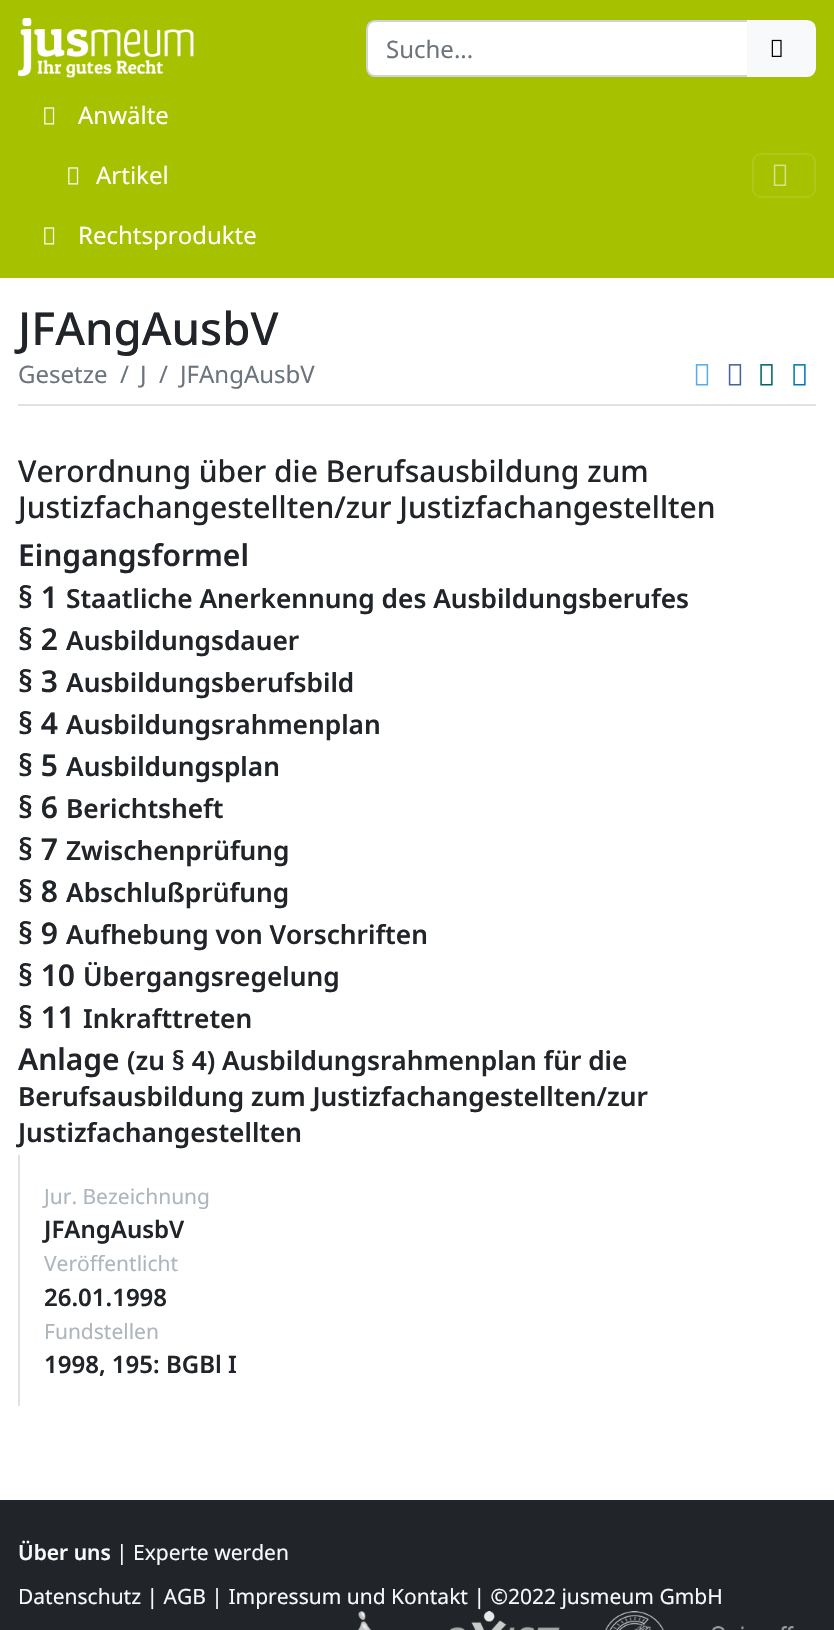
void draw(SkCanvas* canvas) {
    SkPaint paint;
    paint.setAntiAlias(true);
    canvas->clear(0xFFFFFFFF);
    paint.setColor(0xFFA5C100);
    canvas->drawRect(SkRect::MakeXYWH(0, 0, 834, 278), paint);
    canvas->drawImageRect(SkImages::DeferredFromEncodedData(SkData::MakeFromFileName("img1.png")), SkRect::MakeXYWH(18, 18, 176, 60), SkSamplingOptions());
    paint.setColor(0xFFFFFFFF);
    canvas->drawPath(SkPathBuilder().moveTo(375, 21).lineTo(748, 21).lineTo(748, 76).lineTo(375, 76).cubicTo(370.5f, 76, 367, 72.5f, 367, 68).lineTo(367, 29).cubicTo(367, 24.5f, 370.5f, 21, 375, 21).close().detach(), paint);
    paint.setStyle(SkPaint::kStroke_Style);
    paint.setStrokeWidth(2);
    paint.setColor(0xFFCED4DA);
    canvas->drawPath(SkPathBuilder().moveTo(375, 21).lineTo(748, 21).lineTo(748, 76).lineTo(375, 76).cubicTo(370.5f, 76, 367, 72.5f, 367, 68).lineTo(367, 29).cubicTo(367, 24.5f, 370.5f, 21, 375, 21).close().detach(), paint);
    SkFont font1(fontMgr->matchFamilyStyle("Noto Sans", SkFontStyle::Normal()), 24);
    font1.setSubpixel(true);
    paint.setStyle(SkPaint::kFill_Style);
    paint.setColor(0xFF6C757D);
    canvas->drawString("Suche...", 386, 58, font1, paint);
    paint.setColor(0xFFF8F9FA);
    canvas->drawPath(SkPathBuilder().moveTo(748, 21).lineTo(807, 21).cubicTo(811.5f, 21, 815, 24.5f, 815, 29).lineTo(815, 68).cubicTo(815, 72.5f, 811.5f, 76, 807, 76).lineTo(748, 76).close().detach(), paint);
    paint.setStyle(SkPaint::kStroke_Style);
    canvas->drawPath(SkPathBuilder().moveTo(748, 21).lineTo(807, 21).cubicTo(811.5f, 21, 815, 24.5f, 815, 29).lineTo(815, 68).cubicTo(815, 72.5f, 811.5f, 76, 807, 76).lineTo(748, 76).close().detach(), paint);
    canvas->drawImageRect(SkImages::DeferredFromEncodedData(SkData::MakeFromFileName("img2.png")), SkRect::MakeXYWH(771, 39, 11, 18), SkSamplingOptions());
    canvas->drawImageRect(SkImages::DeferredFromEncodedData(SkData::MakeFromFileName("img3.png")), SkRect::MakeXYWH(44, 107, 11, 18), SkSamplingOptions());
    paint.setStyle(SkPaint::kFill_Style);
    paint.setColor(0xFFFFFFFF);
    canvas->drawString("Anwälte", 78, 124, font1, paint);
    canvas->drawImageRect(SkImages::DeferredFromEncodedData(SkData::MakeFromFileName("img3.png")), SkRect::MakeXYWH(68, 167, 11, 18), SkSamplingOptions());
    canvas->drawString("Artikel", 96, 184, font1, paint);
    canvas->drawImageRect(SkImages::DeferredFromEncodedData(SkData::MakeFromFileName("img3.png")), SkRect::MakeXYWH(44, 227, 11, 18), SkSamplingOptions());
    canvas->drawString("Rechtsprodukte", 78, 244, font1, paint);
    paint.setStyle(SkPaint::kStroke_Style);
    paint.setColor(0xFFAEC71A);
    canvas->drawRoundRect(SkRect::MakeXYWH(753, 154, 62, 43), 8, 8, paint);
    canvas->drawImageRect(SkImages::DeferredFromEncodedData(SkData::MakeFromFileName("img4.png")), SkRect::MakeXYWH(773, 164, 14, 22), SkSamplingOptions());
    SkFont font2(fontMgr->matchFamilyStyle("Noto Sans", SkFontStyle(500, SkFontStyle::kNormal_Width, SkFontStyle::kUpright_Slant)), 45.5f);
    font2.setSubpixel(true);
    paint.setStyle(SkPaint::kFill_Style);
    paint.setColor(0xFF212529);
    canvas->drawString("JFAngAusbV", 18, 345, font2, paint);
    paint.setColor(0xFFDEE2E6);
    canvas->drawRect(SkRect::MakeXYWH(18, 404, 798, 2), paint);
    paint.setColor(0xFF6C757D);
    canvas->drawString("Gesetze", 18, 383, font1, paint);
    canvas->drawString("/", 120, 383, font1, paint);
    canvas->drawString("J", 140, 383, font1, paint);
    canvas->drawString("/", 159, 383, font1, paint);
    canvas->drawString("JFAngAusbV", 180, 383, font1, paint);
    canvas->drawImageRect(SkImages::DeferredFromEncodedData(SkData::MakeFromFileName("img5.png")), SkRect::MakeXYWH(695, 364, 14, 22), SkSamplingOptions());
    canvas->drawImageRect(SkImages::DeferredFromEncodedData(SkData::MakeFromFileName("img6.png")), SkRect::MakeXYWH(728, 364, 14, 22), SkSamplingOptions());
    canvas->drawImageRect(SkImages::DeferredFromEncodedData(SkData::MakeFromFileName("img7.png")), SkRect::MakeXYWH(760, 364, 13, 22), SkSamplingOptions());
    canvas->drawImageRect(SkImages::DeferredFromEncodedData(SkData::MakeFromFileName("img8.png")), SkRect::MakeXYWH(793, 364, 13, 22), SkSamplingOptions());
    SkFont font3(fontMgr->matchFamilyStyle("Noto Sans", SkFontStyle(500, SkFontStyle::kNormal_Width, SkFontStyle::kUpright_Slant)), 30);
    font3.setSubpixel(true);
    paint.setColor(0xFF212529);
    canvas->drawString("Verordnung über die Berufsausbildung zum", 18, 482, font3, paint);
    canvas->drawString("Justizfachangestellten/zur Justizfachangestellten", 18, 518, font3, paint);
    SkFont font4(fontMgr->matchFamilyStyle("Noto Sans", SkFontStyle(600, SkFontStyle::kNormal_Width, SkFontStyle::kUpright_Slant)), 30);
    font4.setSubpixel(true);
    canvas->drawString("Eingangsformel", 18, 566, font4, paint);
    canvas->drawString("§ 1", 18, 608, font4, paint);
    SkFont font5(fontMgr->matchFamilyStyle("Noto Sans", SkFontStyle(600, SkFontStyle::kNormal_Width, SkFontStyle::kUpright_Slant)), 26.25f);
    font5.setSubpixel(true);
    canvas->drawString("Staatliche Anerkennung des Ausbildungsberufes", 66, 608, font5, paint);
    canvas->drawString("§ 2", 18, 650, font4, paint);
    canvas->drawString("Ausbildungsdauer", 66, 650, font5, paint);
    canvas->drawString("§ 3", 18, 692, font4, paint);
    canvas->drawString("Ausbildungsberufsbild", 66, 692, font5, paint);
    canvas->drawString("§ 4", 18, 734, font4, paint);
    canvas->drawString("Ausbildungsrahmenplan", 66, 734, font5, paint);
    canvas->drawString("§ 5", 18, 776, font4, paint);
    canvas->drawString("Ausbildungsplan", 66, 776, font5, paint);
    canvas->drawString("§ 6", 18, 818, font4, paint);
    canvas->drawString("Berichtsheft", 66, 818, font5, paint);
    canvas->drawString("§ 7", 18, 860, font4, paint);
    canvas->drawString("Zwischenprüfung", 66, 860, font5, paint);
    canvas->drawString("§ 8", 18, 902, font4, paint);
    canvas->drawString("Abschlußprüfung", 66, 902, font5, paint);
    canvas->drawString("§ 9", 18, 944, font4, paint);
    canvas->drawString("Aufhebung von Vorschriften", 66, 944, font5, paint);
    canvas->drawString("§ 10", 18, 986, font4, paint);
    canvas->drawString("Übergangsregelung", 83, 986, font5, paint);
    canvas->drawString("§ 11", 18, 1028, font4, paint);
    canvas->drawString("Inkrafttreten", 83, 1028, font5, paint);
    canvas->drawString("Anlage", 18, 1070, font4, paint);
    canvas->drawString("(zu § 4) Ausbildungsrahmenplan für die", 127, 1070, font5, paint);
    canvas->drawString("Berufsausbildung zum Justizfachangestellten/zur", 18, 1106, font5, paint);
    canvas->drawString("Justizfachangestellten", 18, 1142, font5, paint);
    paint.setColor(0xFFDEE2E6);
    canvas->drawRect(SkRect::MakeXYWH(18, 1155, 2, 251), paint);
    SkFont font6(fontMgr->matchFamilyStyle("Noto Sans", SkFontStyle::Normal()), 21);
    font6.setSubpixel(true);
    paint.setColor(0xFFADB5BD);
    canvas->drawString("Jur. Bezeichnung", 44, 1204, font6, paint);
    SkFont font7(fontMgr->matchFamilyStyle("Noto Sans", SkFontStyle(600, SkFontStyle::kNormal_Width, SkFontStyle::kUpright_Slant)), 24);
    font7.setSubpixel(true);
    paint.setColor(0xFF212529);
    canvas->drawString("JFAngAusbV", 44, 1238, font7, paint);
    paint.setColor(0xFFADB5BD);
    canvas->drawString("Veröffentlicht", 44, 1271, font6, paint);
    paint.setColor(0xFF212529);
    canvas->drawString("26.01.1998", 44, 1306, font7, paint);
    paint.setColor(0xFFADB5BD);
    canvas->drawString("Fundstellen", 44, 1339, font6, paint);
    paint.setColor(0xFF212529);
    canvas->drawString("1998, 195: BGBl I", 44, 1373, font7, paint);
    canvas->drawRect(SkRect::MakeXYWH(0, 1500, 834, 130), paint);
    SkFont font8(fontMgr->matchFamilyStyle("Noto Sans", SkFontStyle(600, SkFontStyle::kNormal_Width, SkFontStyle::kUpright_Slant)), 21);
    font8.setSubpixel(true);
    paint.setColor(0xFFF8F9FA);
    canvas->drawString("Über uns", 18, 1560, font8, paint);
    canvas->drawString("| Experte werden", 116, 1560, font6, paint);
    canvas->drawString("Datenschutz | AGB | Impressum und Kontakt | ©2022 jusmeum GmbH", 18, 1604, font6, paint);
    canvas->drawImageRect(SkImages::DeferredFromEncodedData(SkData::MakeFromFileName("img9.png")), SkRect::MakeXYWH(358, 1611, 14, 19), SkSamplingOptions());
    canvas->drawImageRect(SkImages::DeferredFromEncodedData(SkData::MakeFromFileName("img10.png")), SkRect::MakeXYWH(449, 1611, 111, 19), SkSamplingOptions());
    canvas->drawImageRect(SkImages::DeferredFromEncodedData(SkData::MakeFromFileName("img11.png")), SkRect::MakeXYWH(605, 1611, 59, 19), SkSamplingOptions());
    canvas->drawImageRect(SkImages::DeferredFromEncodedData(SkData::MakeFromFileName("img12.png")), SkRect::MakeXYWH(712, 1626, 82, 4), SkSamplingOptions());
}
